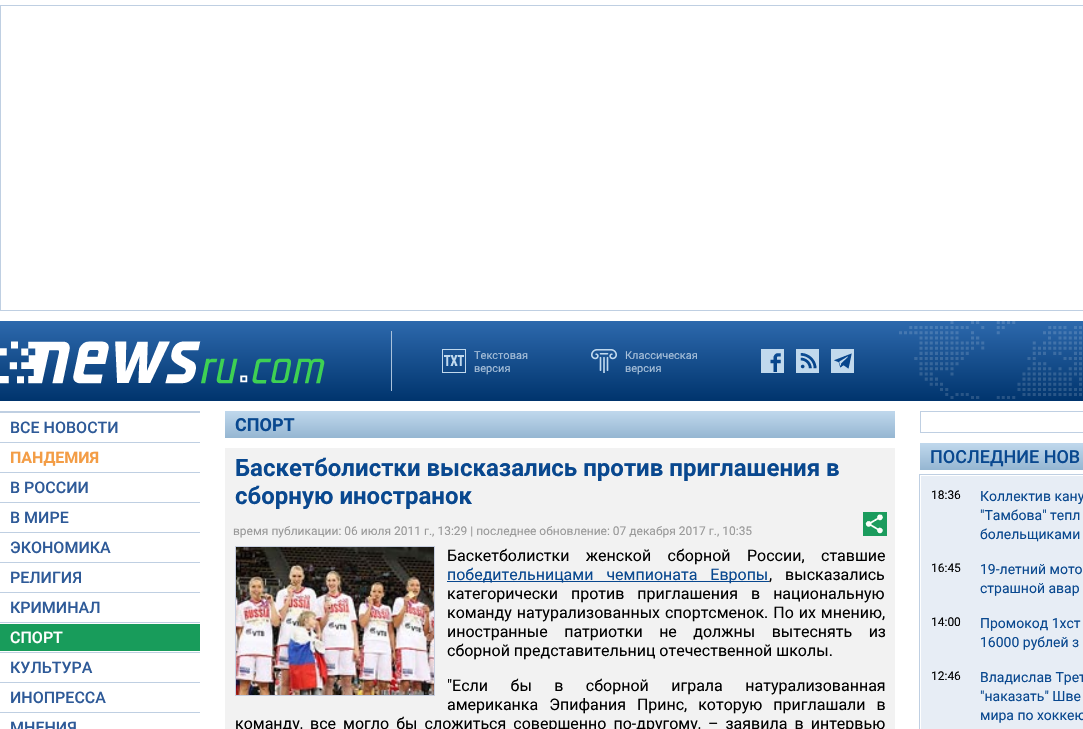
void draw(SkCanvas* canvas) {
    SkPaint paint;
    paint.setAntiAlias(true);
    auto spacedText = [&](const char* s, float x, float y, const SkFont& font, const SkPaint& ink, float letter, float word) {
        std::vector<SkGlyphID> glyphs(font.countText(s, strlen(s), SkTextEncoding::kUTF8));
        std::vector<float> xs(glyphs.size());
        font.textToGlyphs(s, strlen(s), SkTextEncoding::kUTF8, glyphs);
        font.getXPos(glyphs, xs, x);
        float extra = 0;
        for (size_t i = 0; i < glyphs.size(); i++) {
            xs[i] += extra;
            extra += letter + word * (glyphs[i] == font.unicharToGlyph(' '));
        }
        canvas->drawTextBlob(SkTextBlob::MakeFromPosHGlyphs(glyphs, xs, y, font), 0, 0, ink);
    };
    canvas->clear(0xFFFFFFFF);
    paint.setStyle(SkPaint::kStroke_Style);
    paint.setStrokeWidth(1);
    paint.setColor(0xFFBFCFE2);
    canvas->drawRect(SkRect::MakeXYWH(0.5f, 5.5f, 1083, 305), paint);
    paint.setStyle(SkPaint::kFill_Style);
    {
        const SkColor colors[] = {0xFF2D69AD, 0xFF00346D};
        const float stops[] = {0, 1};
        const SkPoint ends[] = {{625, 321}, {625, 401}};
        paint.setShader(SkGradientShader::MakeLinear(ends, colors, stops, 2, SkTileMode::kClamp));
        paint.setAlpha(255);
    }
    canvas->drawRect(SkRect::MakeXYWH(0, 321, 1083, 80), paint);
    canvas->drawImageRect(SkImages::DeferredFromEncodedData(SkData::MakeFromFileName("img1.png")), SkRect::MakeXYWH(0, 341, 325, 43), SkSamplingOptions());
    paint.setShader(nullptr);
    paint.setColor(0xFFAAC2DB);
    canvas->drawRect(SkRect::MakeXYWH(391, 331, 1, 60), paint);
    canvas->drawImageRect(SkImages::DeferredFromEncodedData(SkData::MakeFromFileName("img2.png")), SkRect::MakeXYWH(442, 349, 24, 24), SkSamplingOptions());
    SkFont font1(fontMgr->matchFamilyStyle("Roboto", SkFontStyle::Normal()), 11);
    font1.setSubpixel(true);
    canvas->drawString("Текстовая", 474, 359, font1, paint);
    canvas->drawString("версия", 474, 372, font1, paint);
    canvas->drawImageRect(SkImages::DeferredFromEncodedData(SkData::MakeFromFileName("img3.png")), SkRect::MakeXYWH(591, 349, 26, 24), SkSamplingOptions());
    canvas->drawString("Классическая", 625, 359, font1, paint);
    canvas->drawString("версия", 625, 372, font1, paint);
    canvas->drawImageRect(SkImages::DeferredFromEncodedData(SkData::MakeFromFileName("img4.png")), SkRect::MakeXYWH(761, 349, 23, 24), SkSamplingOptions());
    canvas->drawImageRect(SkImages::DeferredFromEncodedData(SkData::MakeFromFileName("img5.png")), SkRect::MakeXYWH(796, 349, 23, 24), SkSamplingOptions());
    paint.setColor(0xFF08468D);
    canvas->drawRect(SkRect::MakeXYWH(834, 353, 18, 16), paint);
    canvas->drawImageRect(SkImages::DeferredFromEncodedData(SkData::MakeFromFileName("img6.png")), SkRect::MakeXYWH(831, 349, 23, 24), SkSamplingOptions());
    canvas->drawImageRect(SkImages::DeferredFromEncodedData(SkData::MakeFromFileName("img7.png")), SkRect::MakeXYWH(899, 321, 183, 78), SkSamplingOptions());
    paint.setColor(0xFFBFCFE2);
    canvas->drawRect(SkRect::MakeXYWH(0, 411, 200, 2), paint);
    canvas->drawRect(SkRect::MakeXYWH(0, 442, 200, 1), paint);
    SkFont font2(fontMgr->matchFamilyStyle("Roboto", SkFontStyle(500, SkFontStyle::kNormal_Width, SkFontStyle::kUpright_Slant)), 16);
    font2.setSubpixel(true);
    paint.setColor(0xFF2E5A98);
    canvas->drawString("ВСЕ НОВОСТИ", 10, 433, font2, paint);
    paint.setColor(0xFFBFCFE2);
    canvas->drawRect(SkRect::MakeXYWH(0, 472, 200, 1), paint);
    SkFont font3(fontMgr->matchFamilyStyle("Roboto", SkFontStyle::Bold()), 16);
    font3.setSubpixel(true);
    paint.setColor(0xFFF39D46);
    canvas->drawString("ПАНДЕМИЯ", 10, 463, font3, paint);
    paint.setColor(0xFFBFCFE2);
    canvas->drawRect(SkRect::MakeXYWH(0, 502, 200, 1), paint);
    paint.setColor(0xFF2E5A98);
    canvas->drawString("В РОССИИ", 10, 493, font2, paint);
    paint.setColor(0xFFBFCFE2);
    canvas->drawRect(SkRect::MakeXYWH(0, 532, 200, 1), paint);
    paint.setColor(0xFF2E5A98);
    canvas->drawString("В МИРЕ", 10, 523, font2, paint);
    paint.setColor(0xFFBFCFE2);
    canvas->drawRect(SkRect::MakeXYWH(0, 562, 200, 1), paint);
    paint.setColor(0xFF2E5A98);
    canvas->drawString("ЭКОНОМИКА", 10, 553, font2, paint);
    paint.setColor(0xFFBFCFE2);
    canvas->drawRect(SkRect::MakeXYWH(0, 592, 200, 1), paint);
    paint.setColor(0xFF2E5A98);
    canvas->drawString("РЕЛИГИЯ", 10, 583, font2, paint);
    paint.setColor(0xFFBFCFE2);
    canvas->drawRect(SkRect::MakeXYWH(0, 622, 200, 1), paint);
    paint.setColor(0xFF2E5A98);
    canvas->drawString("КРИМИНАЛ", 10, 613, font2, paint);
    paint.setColor(0xFFBFCFE2);
    canvas->drawRect(SkRect::MakeXYWH(0, 652, 200, 1), paint);
    paint.setColor(0xFF189C5B);
    canvas->drawRect(SkRect::MakeXYWH(0, 624, 200, 27), paint);
    paint.setColor(0xFFFFFFFF);
    canvas->drawString("СПОРТ", 10, 643, font2, paint);
    paint.setColor(0xFFBFCFE2);
    canvas->drawRect(SkRect::MakeXYWH(0, 682, 200, 1), paint);
    paint.setColor(0xFF2E5A98);
    canvas->drawString("КУЛЬТУРА", 10, 673, font2, paint);
    paint.setColor(0xFFBFCFE2);
    canvas->drawRect(SkRect::MakeXYWH(0, 712, 200, 1), paint);
    paint.setColor(0xFF2E5A98);
    canvas->drawString("ИНОПРЕССА", 10, 703, font2, paint);
    canvas->drawString("МНЕНИЯ", 10, 733, font2, paint);
    {
        const SkColor colors[] = {0xFFC0D8EC, 0xFF95B6D1};
        const float stops[] = {0, 1};
        const SkPoint ends[] = {{560, 411}, {560, 438}};
        paint.setShader(SkGradientShader::MakeLinear(ends, colors, stops, 2, SkTileMode::kClamp));
        paint.setAlpha(255);
    }
    canvas->drawRect(SkRect::MakeXYWH(225, 411, 670, 27), paint);
    SkFont font4(fontMgr->matchFamilyStyle("Roboto", SkFontStyle::Bold()), 18);
    font4.setSubpixel(true);
    paint.setShader(nullptr);
    paint.setColor(0xFF09488F);
    canvas->drawString("СПОРТ", 235, 431, font4, paint);
    paint.setColor(0xFFF2F2F2);
    canvas->drawRect(SkRect::MakeXYWH(225, 448, 670, 281), paint);
    SkFont font5(fontMgr->matchFamilyStyle("Roboto", SkFontStyle::Bold()), 24);
    font5.setSubpixel(true);
    paint.setColor(0xFF09488F);
    canvas->drawString("Баскетболистки высказались против приглашения в", 235, 476, font5, paint);
    canvas->drawString("сборную иностранок", 235, 504, font5, paint);
    SkFont font6(fontMgr->matchFamilyStyle("Roboto", SkFontStyle::Normal()), 12);
    font6.setSubpixel(true);
    paint.setColor(0xFF999999);
    canvas->drawString("время публикации: 06 июля 2011 г., 13:29 | последнее обновление: 07 декабря 2017 г., 10:35", 233, 535, font6, paint);
    canvas->drawImageRect(SkImages::DeferredFromEncodedData(SkData::MakeFromFileName("img8.png")), SkRect::MakeXYWH(863, 512, 24, 24), SkSamplingOptions());
    paint.setStyle(SkPaint::kStroke_Style);
    paint.setColor(0xFFC7CEDF);
    canvas->drawRect(SkRect::MakeXYWH(235.5f, 546.5f, 199, 149), paint);
    canvas->drawImageRect(SkImages::DeferredFromEncodedData(SkData::MakeFromFileName("img9.png")), SkRect::MakeXYWH(236, 547, 198, 148), SkSamplingOptions());
    SkFont font7(fontMgr->matchFamilyStyle("Roboto", SkFontStyle::Normal()), 16);
    font7.setSubpixel(true);
    paint.setStyle(SkPaint::kFill_Style);
    paint.setColor(0xFF000000);
    spacedText("Баскетболистки женской сборной России, ставшие", 447, 561, font7, paint, 0, 12.5f);
    paint.setColor(0xFF09488F);
    canvas->drawRect(SkRect::MakeXYWH(447, 581, 322, 1), paint);
    spacedText("победительницами чемпионата Европы", 447, 580, font7, paint, 0, 9);
    paint.setColor(0xFF000000);
    spacedText(", высказались", 769, 580, font7, paint, 0, 9);
    spacedText("категорически против приглашения в национальную", 447, 599, font7, paint, 0, 9);
    spacedText("команду натурализованных спортсменок. По их мнению,", 447, 618, font7, paint, 0, 1);
    spacedText("иностранные патриотки не должны вытеснять из", 447, 637, font7, paint, 0, 12.5f);
    canvas->drawString("сборной представительниц отечественной школы.", 447, 656, font7, paint);
    spacedText("\"Если бы в сборной играла натурализованная", 447, 691, font7, paint, 0, 18.5f);
    spacedText("американка Эпифания Принс, которую приглашали в", 447, 710, font7, paint, 0, 7);
    spacedText("команду, все могло бы сложиться совершенно по-другому, – заявила в интервью", 235, 729, font7, paint, 0, 3.1f);
    paint.setStyle(SkPaint::kStroke_Style);
    paint.setColor(0xFFBFCFE2);
    canvas->drawRect(SkRect::MakeXYWH(920.5f, 411.5f, 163, 21), paint);
    paint.setStyle(SkPaint::kFill_Style);
    {
        const SkColor colors[] = {0xFFC0D8EC, 0xFF95B6D1};
        const float stops[] = {0, 1};
        const SkPoint ends[] = {{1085, 443}, {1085, 470}};
        paint.setShader(SkGradientShader::MakeLinear(ends, colors, stops, 2, SkTileMode::kClamp));
        paint.setAlpha(255);
    }
    canvas->drawRect(SkRect::MakeXYWH(920, 443, 163, 27), paint);
    SkFont font8(fontMgr->matchFamilyStyle("Roboto", SkFontStyle(500, SkFontStyle::kNormal_Width, SkFontStyle::kUpright_Slant)), 18);
    font8.setSubpixel(true);
    paint.setShader(nullptr);
    paint.setColor(0xFF09488F);
    canvas->drawString("ПОСЛЕДНИЕ НОВ", 930, 463, font8, paint);
    paint.setColor(0xFFE7EDF5);
    canvas->drawRect(SkRect::MakeXYWH(921, 476, 162, 253), paint);
    paint.setStyle(SkPaint::kStroke_Style);
    paint.setColor(0xFFBFCFE2);
    canvas->drawRect(SkRect::MakeXYWH(919.5f, 474.5f, 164, 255), paint);
    paint.setStyle(SkPaint::kFill_Style);
    paint.setColor(0xFF000000);
    canvas->drawString("18:36", 931, 499, font6, paint);
    SkFont font9(fontMgr->matchFamilyStyle("Roboto", SkFontStyle::Normal()), 14);
    font9.setSubpixel(true);
    paint.setColor(0xFF09488F);
    canvas->drawString("Коллектив кану", 980, 501, font9, paint);
    canvas->drawString("\"Тамбова\" тепл", 980, 520, font9, paint);
    canvas->drawString("болельщиками", 980, 539, font9, paint);
    paint.setColor(0xFF000000);
    canvas->drawString("16:45", 931, 572, font6, paint);
    paint.setColor(0xFF09488F);
    canvas->drawString("19-летний мото", 980, 574, font9, paint);
    canvas->drawString("страшной авар", 980, 593, font9, paint);
    paint.setColor(0xFF000000);
    canvas->drawString("14:00", 931, 626, font6, paint);
    paint.setColor(0xFF09488F);
    canvas->drawString("Промокод 1хст", 980, 628, font9, paint);
    canvas->drawString("16000 рублей з", 980, 647, font9, paint);
    paint.setColor(0xFF000000);
    canvas->drawString("12:46", 931, 680, font6, paint);
    paint.setColor(0xFF09488F);
    canvas->drawString("Владислав Трет", 980, 682, font9, paint);
    canvas->drawString("\"наказать\" Шве", 980, 701, font9, paint);
    canvas->drawString("мира по хоккею", 980, 720, font9, paint);
}
